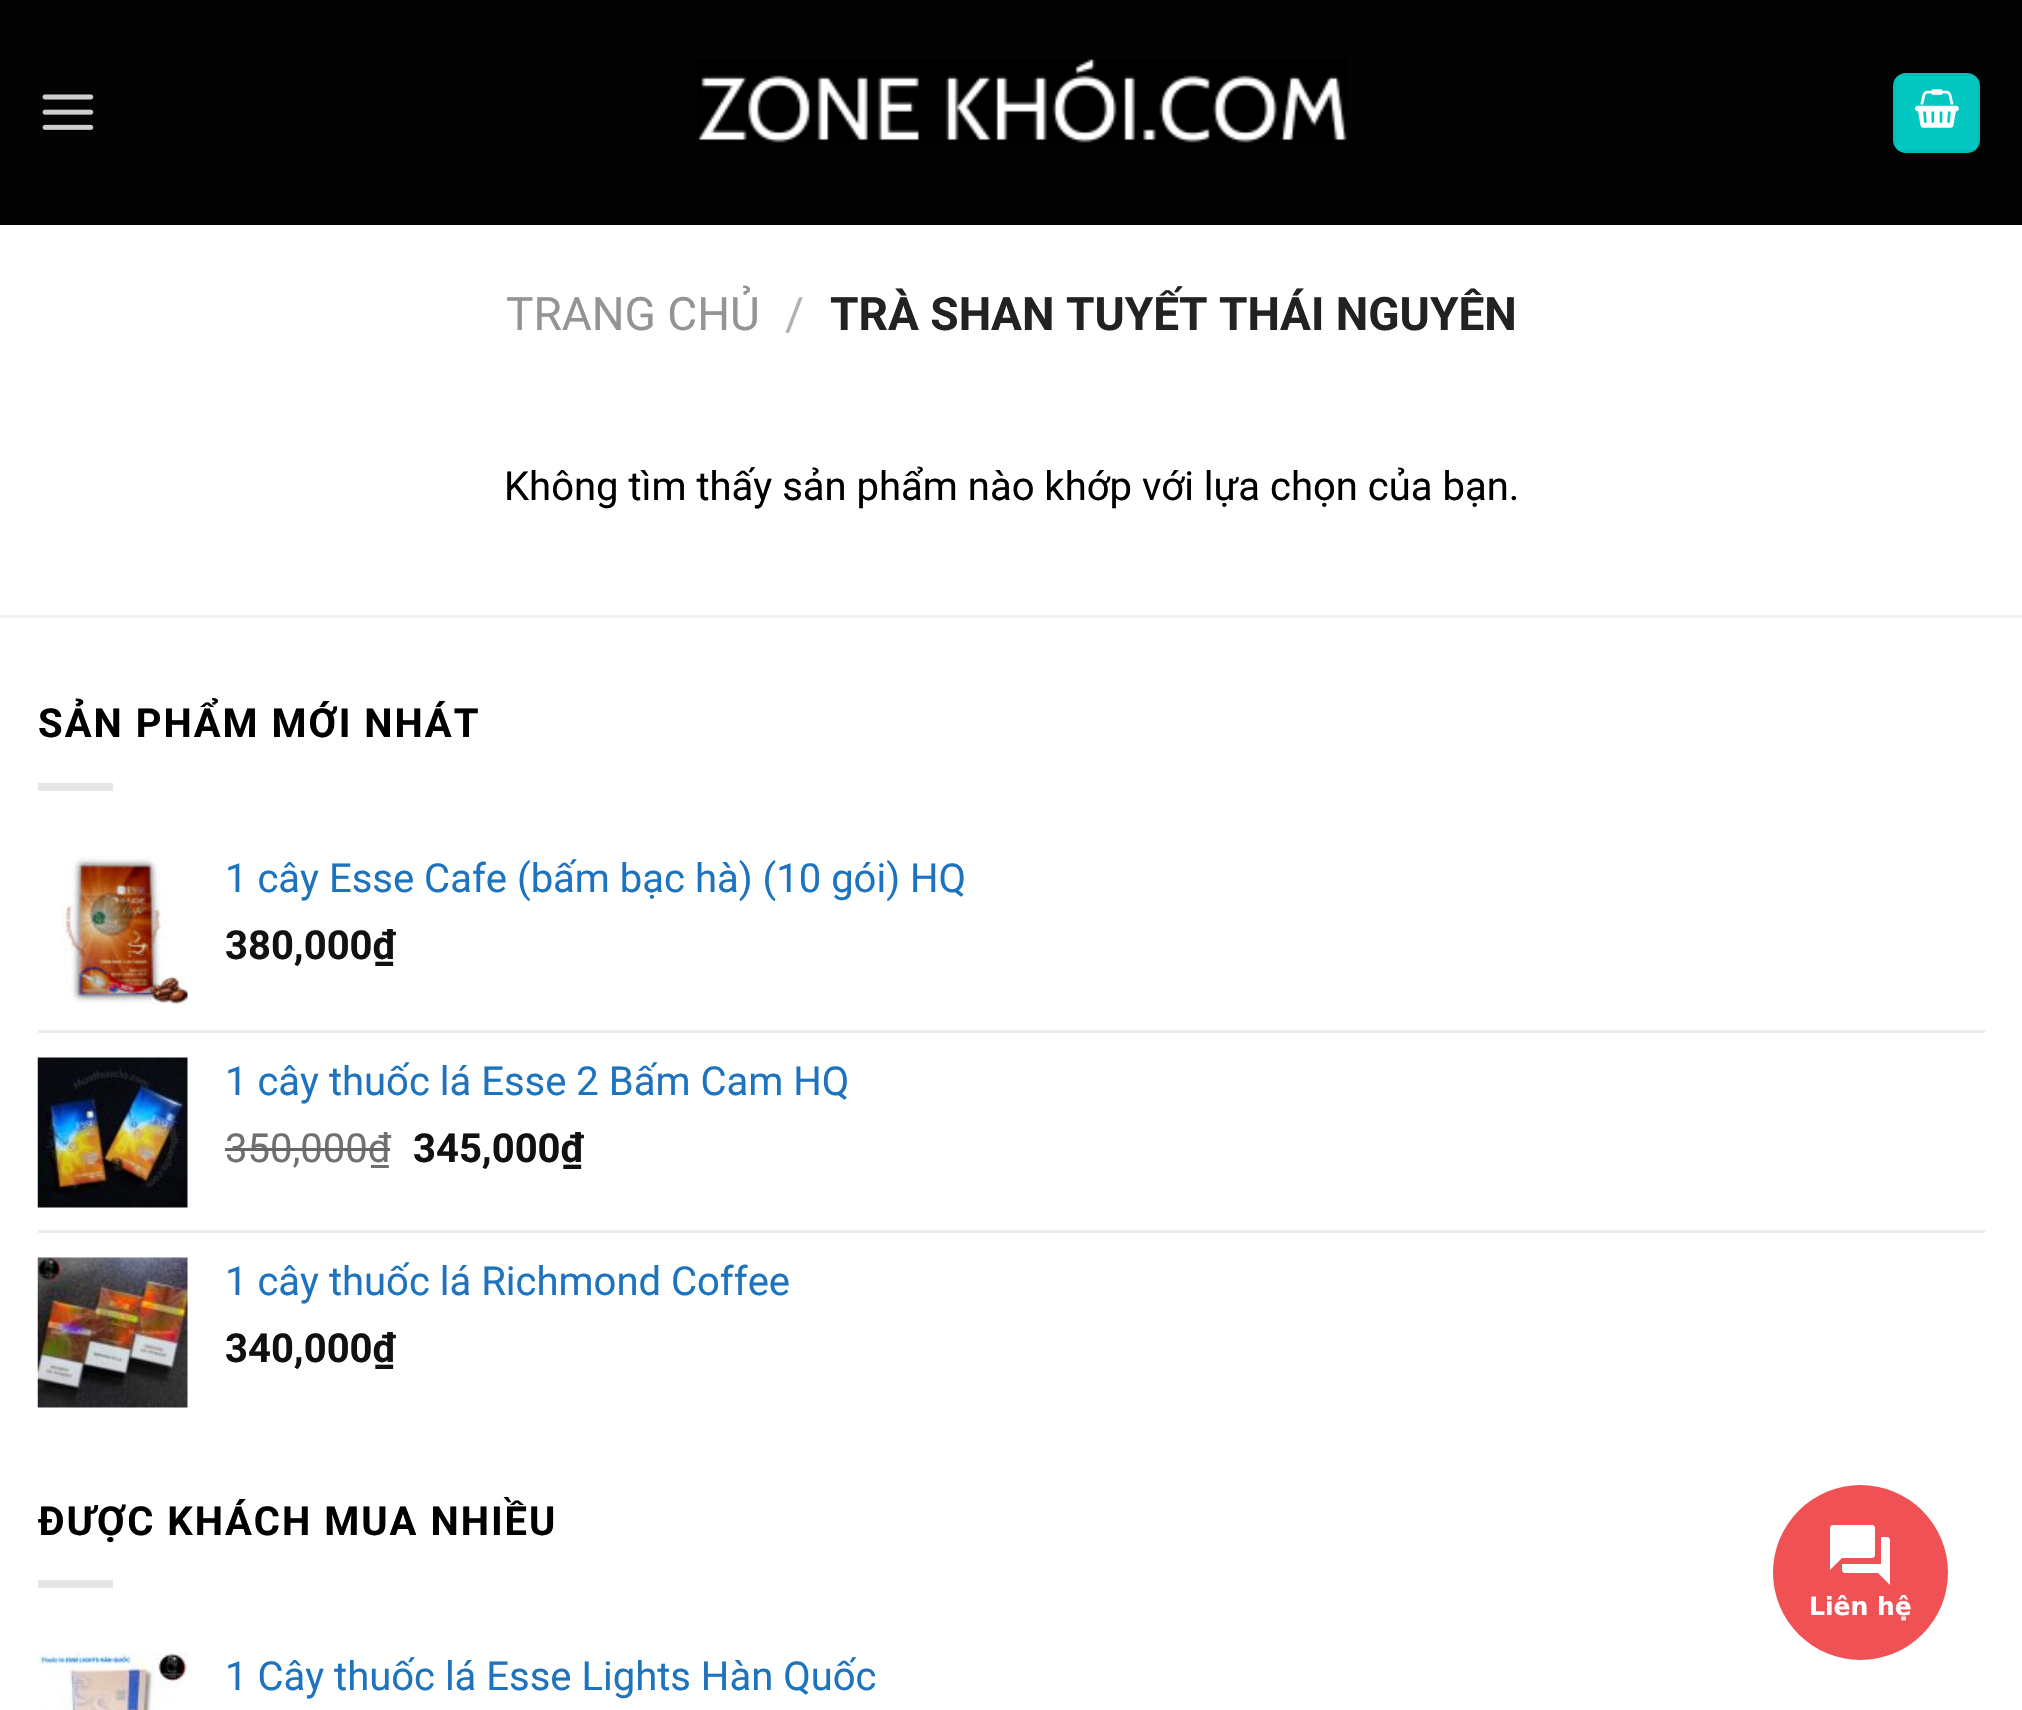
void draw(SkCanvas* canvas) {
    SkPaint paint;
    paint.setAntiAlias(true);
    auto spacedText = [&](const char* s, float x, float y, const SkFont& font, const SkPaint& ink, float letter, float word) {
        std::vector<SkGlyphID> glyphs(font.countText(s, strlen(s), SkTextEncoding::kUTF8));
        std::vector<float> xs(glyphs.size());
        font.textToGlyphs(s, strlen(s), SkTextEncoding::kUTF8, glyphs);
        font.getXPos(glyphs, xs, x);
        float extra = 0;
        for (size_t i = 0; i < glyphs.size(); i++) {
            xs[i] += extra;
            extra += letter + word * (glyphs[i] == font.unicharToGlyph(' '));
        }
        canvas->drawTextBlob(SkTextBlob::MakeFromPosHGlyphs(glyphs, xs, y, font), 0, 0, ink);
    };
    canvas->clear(0xFFFFFFFF);
    paint.setColor(0xFF030303);
    canvas->drawRect(SkRect::MakeXYWH(0, 0, 2022, 225), paint);
    canvas->drawImageRect(SkImages::DeferredFromEncodedData(SkData::MakeFromFileName("img1.png")), SkRect::MakeXYWH(42, 94, 52, 36), SkSamplingOptions());
    canvas->drawImageRect(SkImages::DeferredFromEncodedData(SkData::MakeFromFileName("img2.png")), SkRect::MakeXYWH(697, 59, 650, 84), SkSamplingOptions());
    paint.setColor(0xFF03C8C2);
    canvas->drawRoundRect(SkRect::MakeXYWH(1893, 73, 87, 80), 13, 13, paint);
    paint.setStyle(SkPaint::kStroke_Style);
    paint.setStrokeWidth(3);
    paint.setColor(0x0D000000);
    canvas->drawRect(SkRect::MakeXYWH(1894.5f, 74.5f, 84, 77), paint);
    canvas->drawImageRect(SkImages::DeferredFromEncodedData(SkData::MakeFromFileName("img3.png")), SkRect::MakeXYWH(1915, 89, 44, 39), SkSamplingOptions());
    SkFont font1(fontMgr->matchFamilyStyle("Roboto", SkFontStyle::Normal()), 46);
    font1.setSubpixel(true);
    paint.setStyle(SkPaint::kFill_Style);
    paint.setColor(0xFF949494);
    canvas->drawString("TRANG CHỦ", 506, 330, font1, paint);
    paint.setColor(0xFFB2B2B2);
    canvas->drawString("/", 785, 330, font1, paint);
    SkFont font2(fontMgr->matchFamilyStyle("Roboto", SkFontStyle::Bold()), 46);
    font2.setSubpixel(true);
    paint.setColor(0xFF222222);
    canvas->drawString("TRÀ SHAN TUYẾT THÁI NGUYÊN", 830, 330, font2, paint);
    SkFont font3(fontMgr->matchFamilyStyle("Roboto", SkFontStyle::Normal()), 40);
    font3.setSubpixel(true);
    paint.setColor(0xFF000000);
    canvas->drawString("Không tìm thấy sản phẩm nào khớp với lựa chọn của bạn.", 504, 500, font3, paint);
    paint.setColor(0xFFF2F2F2);
    canvas->drawRect(SkRect::MakeXYWH(0, 615, 2022, 3), paint);
    SkFont font4(fontMgr->matchFamilyStyle("Roboto", SkFontStyle::Bold()), 40);
    font4.setSubpixel(true);
    paint.setColor(0xFF000000);
    spacedText("SẢN PHẨM MỚI NHÁT", 38, 737, font4, paint, 2, 0);
    paint.setColor(0xFFE6E6E6);
    canvas->drawRect(SkRect::MakeXYWH(38, 783, 75, 8), paint);
    canvas->drawImageRect(SkImages::DeferredFromEncodedData(SkData::MakeFromFileName("img4.png")), SkRect::MakeXYWH(62, 855, 126, 150), SkSamplingOptions());
    paint.setColor(0xFF1E73BE);
    canvas->drawString("1 cây Esse Cafe (bấm bạc hà) (10 gói) HQ", 225, 892, font3, paint);
    paint.setColor(0xFF111111);
    canvas->drawString("380,000₫", 225, 959, font4, paint);
    paint.setColor(0xFFECECEC);
    canvas->drawRect(SkRect::MakeXYWH(38, 1030, 1947, 3), paint);
    canvas->drawImageRect(SkImages::DeferredFromEncodedData(SkData::MakeFromFileName("img5.png")), SkRect::MakeXYWH(37, 1057, 151, 151), SkSamplingOptions());
    paint.setColor(0xFF1E73BE);
    canvas->drawString("1 cây thuốc lá Esse 2 Bấm Cam HQ", 225, 1095, font3, paint);
    paint.setColor(0xFF707070);
    canvas->drawString("350,000₫", 225, 1162, font3, paint);
    paint.setColor(0xFF666666);
    canvas->drawRect(SkRect::MakeXYWH(225, 1148, 165, 3), paint);
    paint.setColor(0xFF111111);
    canvas->drawString("345,000₫", 413, 1162, font4, paint);
    paint.setColor(0xFFECECEC);
    canvas->drawRect(SkRect::MakeXYWH(38, 1230, 1947, 3), paint);
    canvas->drawImageRect(SkImages::DeferredFromEncodedData(SkData::MakeFromFileName("img6.png")), SkRect::MakeXYWH(37, 1257, 151, 151), SkSamplingOptions());
    paint.setColor(0xFF1E73BE);
    canvas->drawString("1 cây thuốc lá Richmond Coffee", 225, 1295, font3, paint);
    paint.setColor(0xFF111111);
    canvas->drawString("340,000₫", 225, 1362, font4, paint);
    paint.setColor(0xFF000000);
    spacedText("ĐƯỢC KHÁCH MUA NHIỀU", 38, 1535, font4, paint, 2, 0);
    paint.setColor(0xFFE6E6E6);
    canvas->drawRect(SkRect::MakeXYWH(38, 1580, 75, 8), paint);
    canvas->drawImageRect(SkImages::DeferredFromEncodedData(SkData::MakeFromFileName("img7.png")), SkRect::MakeXYWH(37, 1652, 151, 58), SkSamplingOptions());
    paint.setColor(0xFF1E73BE);
    canvas->drawString("1 Cây thuốc lá Esse Lights Hàn Quốc", 225, 1690, font3, paint);
    paint.setColor(0xFFF05154);
    canvas->drawCircle(1860.5f, 1572.5f, 87.5f, paint);
    canvas->drawImageRect(SkImages::DeferredFromEncodedData(SkData::MakeFromFileName("img8.png")), SkRect::MakeXYWH(1830, 1525, 60, 60), SkSamplingOptions());
    SkFont font5(fontMgr->matchFamilyStyle("DejaVu Sans", SkFontStyle::Bold()), 25);
    font5.setSubpixel(true);
    paint.setColor(0xFFFFFFFF);
    canvas->drawString("Liên hệ", 1809, 1615, font5, paint);
}
